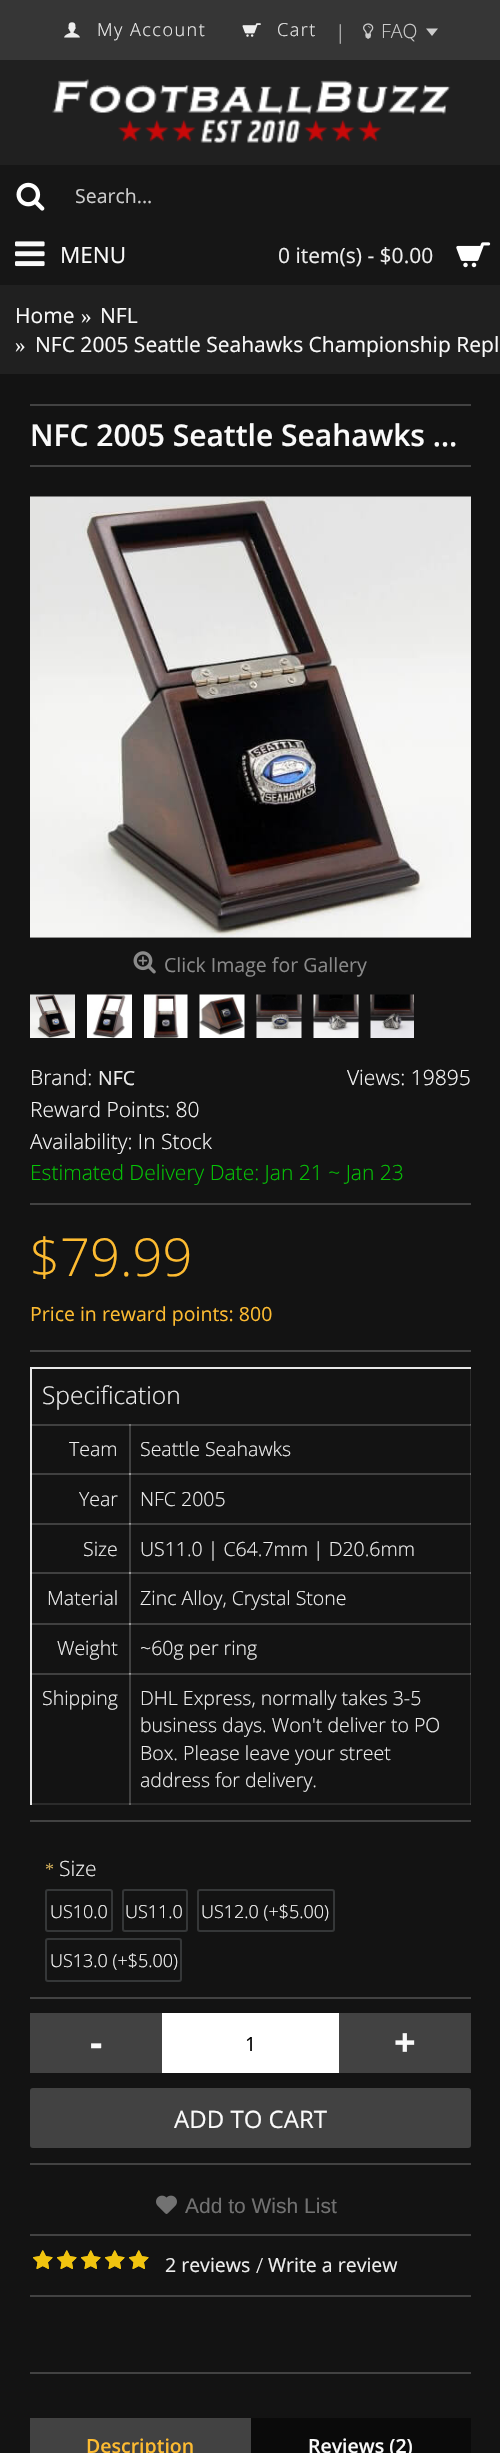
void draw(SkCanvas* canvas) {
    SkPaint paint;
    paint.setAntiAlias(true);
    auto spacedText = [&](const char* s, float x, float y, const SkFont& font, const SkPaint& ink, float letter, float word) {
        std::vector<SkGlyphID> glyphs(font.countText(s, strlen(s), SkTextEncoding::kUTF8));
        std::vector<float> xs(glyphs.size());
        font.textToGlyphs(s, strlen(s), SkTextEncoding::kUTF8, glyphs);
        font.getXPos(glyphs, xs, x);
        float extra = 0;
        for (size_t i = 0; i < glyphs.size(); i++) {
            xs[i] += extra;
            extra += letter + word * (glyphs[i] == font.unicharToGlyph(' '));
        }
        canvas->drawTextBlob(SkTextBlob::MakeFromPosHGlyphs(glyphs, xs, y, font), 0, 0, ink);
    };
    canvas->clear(0xFF202020);
    paint.setColor(0xFF363636);
    canvas->drawRect(SkRect::MakeXYWH(0, 0, 500, 60), paint);
    canvas->drawImageRect(SkImages::DeferredFromEncodedData(SkData::MakeFromFileName("img1.png")), SkRect::MakeXYWH(64, 22, 16, 16), SkSamplingOptions());
    SkFont font1(fontMgr->matchFamilyStyle("Open Sans", SkFontStyle(300, SkFontStyle::kNormal_Width, SkFontStyle::kUpright_Slant)), 18);
    font1.setSubpixel(true);
    paint.setColor(0xFFEEEEEE);
    spacedText("My Account", 97, 36, font1, paint, 1.5f, 0);
    canvas->drawImageRect(SkImages::DeferredFromEncodedData(SkData::MakeFromFileName("img2.png")), SkRect::MakeXYWH(242, 23, 19, 14), SkSamplingOptions());
    spacedText("Cart", 277, 36, font1, paint, 1.5f, 0);
    SkFont font2(fontMgr->matchFamilyStyle("Open Sans", SkFontStyle(300, SkFontStyle::kNormal_Width, SkFontStyle::kUpright_Slant)), 19.5f);
    font2.setSubpixel(true);
    paint.setColor(0xFFCCCCCC);
    canvas->drawString("|", 335, 39, font2, paint);
    canvas->drawImageRect(SkImages::DeferredFromEncodedData(SkData::MakeFromFileName("img3.png")), SkRect::MakeXYWH(363, 23, 11, 16), SkSamplingOptions());
    canvas->drawString("FAQ", 381, 38, font2, paint);
    canvas->drawPath(SkPathBuilder().moveTo(438, 28.5f).lineTo(426, 28.5f).lineTo(432, 36).close().detach(), paint);
    canvas->drawImageRect(SkImages::DeferredFromEncodedData(SkData::MakeFromFileName("img4.png")), SkRect::MakeXYWH(52, 79, 399, 64), SkSamplingOptions());
    paint.setColor(0xFF161616);
    canvas->drawRect(SkRect::MakeXYWH(0, 165, 500, 120), paint);
    canvas->drawImageRect(SkImages::DeferredFromEncodedData(SkData::MakeFromFileName("img5.png")), SkRect::MakeXYWH(16, 182, 29, 29), SkSamplingOptions());
    SkFont font3(fontMgr->matchFamilyStyle("Open Sans", SkFontStyle::Normal()), 19.5f);
    font3.setSubpixel(true);
    paint.setColor(0xFFCCCCCC);
    canvas->drawString("Search...", 75, 203, font3, paint);
    SkFont font4(fontMgr->matchFamilyStyle("Open Sans", SkFontStyle::Normal()), 21);
    font4.setSubpixel(true);
    paint.setColor(0xFFEEEEEE);
    canvas->drawString("0 item(s) - $0.00", 278, 263, font4, paint);
    canvas->drawImageRect(SkImages::DeferredFromEncodedData(SkData::MakeFromFileName("img6.png")), SkRect::MakeXYWH(456, 242, 35, 26), SkSamplingOptions());
    canvas->drawImageRect(SkImages::DeferredFromEncodedData(SkData::MakeFromFileName("img7.png")), SkRect::MakeXYWH(15, 241, 30, 26), SkSamplingOptions());
    SkFont font5(fontMgr->matchFamilyStyle("Open Sans", SkFontStyle::Normal()), 22.5f);
    font5.setSubpixel(true);
    paint.setColor(0xFFFAFAFA);
    canvas->drawString("MENU", 60, 263, font5, paint);
    canvas->drawString("Home", 15, 323, font4, paint);
    SkFont font6(fontMgr->matchFamilyStyle("Liberation Serif", SkFontStyle::Normal()), 21);
    font6.setSubpixel(true);
    canvas->drawString("»", 81, 323, font6, paint);
    canvas->drawString("NFL", 100, 323, font4, paint);
    canvas->drawString("»", 15, 352, font6, paint);
    canvas->drawString("NFC 2005 Seattle Seahawks Championship Repl", 35, 352, font4, paint);
    paint.setColor(0xFF131313);
    canvas->drawRect(SkRect::MakeXYWH(0, 374, 500, 2079), paint);
    paint.setColor(0xFF2B2B2B);
    canvas->drawRect(SkRect::MakeXYWH(470, 1367, 1, 307), paint);
    paint.setColor(0xFF404040);
    canvas->drawRect(SkRect::MakeXYWH(30, 1424, 101, 2), paint);
    canvas->drawRect(SkRect::MakeXYWH(129, 1424, 2, 51), paint);
    canvas->drawRect(SkRect::MakeXYWH(30, 1473, 101, 2), paint);
    canvas->drawRect(SkRect::MakeXYWH(129, 1473, 2, 51), paint);
    canvas->drawRect(SkRect::MakeXYWH(30, 1523, 101, 2), paint);
    canvas->drawRect(SkRect::MakeXYWH(129, 1523, 2, 51), paint);
    canvas->drawRect(SkRect::MakeXYWH(30, 1572, 101, 2), paint);
    canvas->drawRect(SkRect::MakeXYWH(129, 1572, 2, 53), paint);
    canvas->drawRect(SkRect::MakeXYWH(30, 1623, 101, 2), paint);
    canvas->drawRect(SkRect::MakeXYWH(129, 1623, 2, 51), paint);
    paint.setColor(0xFF2B2B2B);
    canvas->drawRect(SkRect::MakeXYWH(30, 1803, 101, 2), paint);
    paint.setColor(0xFF404040);
    canvas->drawRect(SkRect::MakeXYWH(30, 1673, 101, 2), paint);
    canvas->drawRect(SkRect::MakeXYWH(129, 1673, 2, 132), paint);
    paint.setColor(0xFF2B2B2B);
    canvas->drawRect(SkRect::MakeXYWH(129, 1803, 342, 2), paint);
    paint.setColor(0xFF646464);
    canvas->drawRect(SkRect::MakeXYWH(129, 1803, 2, 2), paint);
    paint.setColor(0xFF2B2B2B);
    canvas->drawRect(SkRect::MakeXYWH(470, 1673, 1, 132), paint);
    paint.setColor(0xFF404040);
    canvas->drawRect(SkRect::MakeXYWH(470, 1803, 1, 2), paint);
    paint.setColor(0xFF424242);
    canvas->drawRect(SkRect::MakeXYWH(30, 404, 441, 2), paint);
    canvas->drawRect(SkRect::MakeXYWH(30, 465, 441, 2), paint);
    SkFont font7(fontMgr->matchFamilyStyle("Open Sans", SkFontStyle(600, SkFontStyle::kNormal_Width, SkFontStyle::kUpright_Slant)), 30);
    font7.setSubpixel(true);
    paint.setColor(0xFFFAFAFA);
    canvas->drawString("NFC 2005 Seattle Seahawks …", 30, 446, font7, paint);
    canvas->drawImageRect(SkImages::DeferredFromEncodedData(SkData::MakeFromFileName("img8.png")), SkRect::MakeXYWH(30, 496, 441, 442), SkSamplingOptions());
    canvas->drawImageRect(SkImages::DeferredFromEncodedData(SkData::MakeFromFileName("img9.png")), SkRect::MakeXYWH(133, 951, 23, 23), SkSamplingOptions());
    paint.setColor(0xFF898989);
    canvas->drawString("Click Image for Gallery", 164, 972, font3, paint);
    canvas->drawImageRect(SkImages::DeferredFromEncodedData(SkData::MakeFromFileName("img10.png")), SkRect::MakeXYWH(30, 994, 45, 44), SkSamplingOptions());
    canvas->drawImageRect(SkImages::DeferredFromEncodedData(SkData::MakeFromFileName("img11.png")), SkRect::MakeXYWH(87, 994, 45, 44), SkSamplingOptions());
    canvas->drawImageRect(SkImages::DeferredFromEncodedData(SkData::MakeFromFileName("img12.png")), SkRect::MakeXYWH(144, 994, 44, 44), SkSamplingOptions());
    canvas->drawImageRect(SkImages::DeferredFromEncodedData(SkData::MakeFromFileName("img13.png")), SkRect::MakeXYWH(199, 994, 46, 44), SkSamplingOptions());
    canvas->drawImageRect(SkImages::DeferredFromEncodedData(SkData::MakeFromFileName("img14.png")), SkRect::MakeXYWH(256, 994, 46, 44), SkSamplingOptions());
    canvas->drawImageRect(SkImages::DeferredFromEncodedData(SkData::MakeFromFileName("img15.png")), SkRect::MakeXYWH(313, 994, 46, 44), SkSamplingOptions());
    canvas->drawImageRect(SkImages::DeferredFromEncodedData(SkData::MakeFromFileName("img16.png")), SkRect::MakeXYWH(370, 994, 44, 44), SkSamplingOptions());
    paint.setColor(0xFF424242);
    canvas->drawRect(SkRect::MakeXYWH(30, 1203, 441, 2), paint);
    SkFont font8(fontMgr->matchFamilyStyle("Open Sans", SkFontStyle(300, SkFontStyle::kNormal_Width, SkFontStyle::kUpright_Slant)), 21);
    font8.setSubpixel(true);
    paint.setColor(0xFFFAFAFA);
    canvas->drawString("Brand:", 30, 1085, font8, paint);
    paint.setColor(0xFFEEEEEE);
    canvas->drawString("NFC", 98, 1085, font3, paint);
    paint.setColor(0xFFFAFAFA);
    canvas->drawString("Views: 19895", 347, 1085, font8, paint);
    canvas->drawString("Reward Points: 80", 30, 1117, font8, paint);
    canvas->drawString("Availability: In Stock", 30, 1149, font8, paint);
    paint.setColor(0xFF05C405);
    canvas->drawString("Estimated Delivery Date: Jan 21 ~ Jan 23", 30, 1180, font8, paint);
    paint.setColor(0xFF424242);
    canvas->drawRect(SkRect::MakeXYWH(30, 1350, 441, 2), paint);
    SkFont font9(fontMgr->matchFamilyStyle("Open Sans", SkFontStyle(300, SkFontStyle::kNormal_Width, SkFontStyle::kUpright_Slant)), 52.5f);
    font9.setSubpixel(true);
    paint.setColor(0xFFFDBB31);
    canvas->drawString("$79.99", 30, 1276, font9, paint);
    canvas->drawString("Price in reward points: 800", 30, 1321, font3, paint);
    paint.setColor(0xFF424242);
    canvas->drawRect(SkRect::MakeXYWH(30, 1820, 441, 2), paint);
    paint.setColor(0xFFE7E7E7);
    canvas->drawRect(SkRect::MakeXYWH(30, 1367, 2, 438), paint);
    paint.setColor(0xFFEBEBEB);
    canvas->drawRect(SkRect::MakeXYWH(30, 1425, 2, 1), paint);
    paint.setColor(0xFFEDEDED);
    canvas->drawRect(SkRect::MakeXYWH(30, 1424, 2, 1), paint);
    canvas->drawRect(SkRect::MakeXYWH(30, 1473, 2, 2), paint);
    paint.setColor(0xFFEBEBEB);
    canvas->drawRect(SkRect::MakeXYWH(30, 1524, 2, 1), paint);
    paint.setColor(0xFFEDEDED);
    canvas->drawRect(SkRect::MakeXYWH(30, 1523, 2, 1), paint);
    canvas->drawRect(SkRect::MakeXYWH(30, 1572, 2, 2), paint);
    canvas->drawRect(SkRect::MakeXYWH(30, 1623, 2, 2), paint);
    paint.setColor(0xFFEBEBEB);
    canvas->drawRect(SkRect::MakeXYWH(30, 1674, 2, 1), paint);
    paint.setColor(0xFFEDEDED);
    canvas->drawRect(SkRect::MakeXYWH(30, 1673, 2, 1), paint);
    paint.setColor(0xFFE7E7E7);
    canvas->drawRect(SkRect::MakeXYWH(30, 1367, 441, 2), paint);
    SkFont font10(fontMgr->matchFamilyStyle("Open Sans", SkFontStyle(300, SkFontStyle::kNormal_Width, SkFontStyle::kUpright_Slant)), 24.5f);
    font10.setSubpixel(true);
    paint.setColor(0xFFEEEEEE);
    canvas->drawString("Specification", 42, 1404, font10, paint);
    canvas->drawString("Team", 69, 1456, font2, paint);
    paint.setColor(0xFF404040);
    canvas->drawRect(SkRect::MakeXYWH(129, 1424, 342, 2), paint);
    paint.setColor(0xFF747474);
    canvas->drawRect(SkRect::MakeXYWH(129, 1424, 2, 2), paint);
    paint.setColor(0xFF535353);
    canvas->drawRect(SkRect::MakeXYWH(470, 1424, 1, 2), paint);
    paint.setColor(0xFF646464);
    canvas->drawRect(SkRect::MakeXYWH(470, 1424, 1, 1), paint);
    paint.setColor(0xFFEEEEEE);
    canvas->drawString("Seattle Seahawks", 140, 1456, font2, paint);
    canvas->drawString("Year", 79, 1506, font2, paint);
    paint.setColor(0xFF404040);
    canvas->drawRect(SkRect::MakeXYWH(129, 1473, 342, 2), paint);
    paint.setColor(0xFF9A9A9A);
    canvas->drawRect(SkRect::MakeXYWH(129, 1473, 2, 2), paint);
    paint.setColor(0xFF646464);
    canvas->drawRect(SkRect::MakeXYWH(470, 1473, 1, 2), paint);
    paint.setColor(0xFFEEEEEE);
    canvas->drawString("NFC 2005", 140, 1506, font2, paint);
    canvas->drawString("Size", 83, 1556, font2, paint);
    paint.setColor(0xFF404040);
    canvas->drawRect(SkRect::MakeXYWH(129, 1523, 342, 2), paint);
    paint.setColor(0xFF828282);
    canvas->drawRect(SkRect::MakeXYWH(129, 1524, 2, 1), paint);
    paint.setColor(0xFF9A9A9A);
    canvas->drawRect(SkRect::MakeXYWH(129, 1523, 2, 1), paint);
    paint.setColor(0xFF535353);
    canvas->drawRect(SkRect::MakeXYWH(470, 1523, 1, 2), paint);
    paint.setColor(0xFF646464);
    canvas->drawRect(SkRect::MakeXYWH(470, 1523, 1, 1), paint);
    paint.setColor(0xFFEEEEEE);
    canvas->drawString("US11.0 | C64.7mm | D20.6mm", 140, 1556, font2, paint);
    canvas->drawString("Material", 47, 1605, font2, paint);
    paint.setColor(0xFF404040);
    canvas->drawRect(SkRect::MakeXYWH(129, 1572, 342, 2), paint);
    paint.setColor(0xFF9A9A9A);
    canvas->drawRect(SkRect::MakeXYWH(129, 1572, 2, 2), paint);
    paint.setColor(0xFF646464);
    canvas->drawRect(SkRect::MakeXYWH(470, 1572, 1, 2), paint);
    paint.setColor(0xFFEEEEEE);
    canvas->drawString("Zinc Alloy, Crystal Stone", 140, 1605, font2, paint);
    canvas->drawString("Weight", 57, 1655, font2, paint);
    paint.setColor(0xFF404040);
    canvas->drawRect(SkRect::MakeXYWH(129, 1623, 342, 2), paint);
    paint.setColor(0xFF9A9A9A);
    canvas->drawRect(SkRect::MakeXYWH(129, 1623, 2, 2), paint);
    paint.setColor(0xFF646464);
    canvas->drawRect(SkRect::MakeXYWH(470, 1623, 1, 2), paint);
    paint.setColor(0xFFEEEEEE);
    canvas->drawString("~60g per ring", 140, 1655, font2, paint);
    canvas->drawString("Shipping", 42, 1705, font2, paint);
    paint.setColor(0xFF404040);
    canvas->drawRect(SkRect::MakeXYWH(129, 1673, 342, 2), paint);
    paint.setColor(0xFF828282);
    canvas->drawRect(SkRect::MakeXYWH(129, 1674, 2, 1), paint);
    paint.setColor(0xFF9A9A9A);
    canvas->drawRect(SkRect::MakeXYWH(129, 1673, 2, 1), paint);
    paint.setColor(0xFF535353);
    canvas->drawRect(SkRect::MakeXYWH(470, 1673, 1, 2), paint);
    paint.setColor(0xFF646464);
    canvas->drawRect(SkRect::MakeXYWH(470, 1673, 1, 1), paint);
    paint.setColor(0xFFEEEEEE);
    canvas->drawString("DHL Express, normally takes 3-5", 140, 1705, font2, paint);
    canvas->drawString("business days. Won't deliver to PO", 140, 1732, font2, paint);
    canvas->drawString("Box. Please leave your street", 140, 1760, font2, paint);
    canvas->drawString("address for delivery.", 140, 1787, font2, paint);
    paint.setColor(0xFF424242);
    canvas->drawRect(SkRect::MakeXYWH(30, 1997, 441, 2), paint);
    SkFont font11(fontMgr->matchFamilyStyle("Liberation Serif", SkFontStyle::Normal()), 18);
    font11.setSubpixel(true);
    paint.setColor(0xFFCEAB58);
    canvas->drawString("*", 45, 1875, font11, paint);
    paint.setColor(0xFFEEEEEE);
    canvas->drawString("Size", 59, 1876, font8, paint);
    paint.setStyle(SkPaint::kStroke_Style);
    paint.setStrokeWidth(2);
    paint.setColor(0xFF353738);
    canvas->drawRoundRect(SkRect::MakeXYWH(46, 1890, 66, 41), 2, 2, paint);
    paint.setStyle(SkPaint::kFill_Style);
    paint.setColor(0xFFFAFAFA);
    canvas->drawString("US10.0", 50, 1918, font1, paint);
    paint.setStyle(SkPaint::kStroke_Style);
    paint.setColor(0xFF353738);
    canvas->drawRoundRect(SkRect::MakeXYWH(123, 1890, 64, 41), 2, 2, paint);
    paint.setStyle(SkPaint::kFill_Style);
    paint.setColor(0xFFFAFAFA);
    canvas->drawString("US11.0", 125, 1918, font1, paint);
    paint.setStyle(SkPaint::kStroke_Style);
    paint.setColor(0xFF353738);
    canvas->drawRoundRect(SkRect::MakeXYWH(198, 1890, 136, 41), 2, 2, paint);
    paint.setStyle(SkPaint::kFill_Style);
    paint.setColor(0xFFFAFAFA);
    canvas->drawString("US12.0 (+$5.00)", 201, 1918, font1, paint);
    paint.setStyle(SkPaint::kStroke_Style);
    paint.setColor(0xFF353738);
    canvas->drawRoundRect(SkRect::MakeXYWH(46, 1939, 135, 42), 2, 2, paint);
    paint.setStyle(SkPaint::kFill_Style);
    paint.setColor(0xFFFAFAFA);
    canvas->drawString("US13.0 (+$5.00)", 50, 1967, font1, paint);
    paint.setColor(0xFF424242);
    canvas->drawRect(SkRect::MakeXYWH(30, 2163, 441, 2), paint);
    canvas->drawRect(SkRect::MakeXYWH(30, 2013, 132, 60), paint);
    SkFont font12(fontMgr->matchFamilyStyle("Open Sans", SkFontStyle::Bold()), 38);
    font12.setSubpixel(true);
    paint.setColor(0xFFFAFAFA);
    canvas->drawString("-", 90, 2056, font12, paint);
    paint.setColor(0xFFFFFFFF);
    canvas->drawRect(SkRect::MakeXYWH(162, 2013, 177, 60), paint);
    paint.setColor(0xFF000000);
    canvas->drawString("1", 245, 2051, font3, paint);
    paint.setColor(0xFF424242);
    canvas->drawRect(SkRect::MakeXYWH(339, 2013, 132, 60), paint);
    paint.setColor(0xFFFAFAFA);
    canvas->drawString("+", 394, 2056, font12, paint);
    paint.setColor(0xFF424242);
    canvas->drawRoundRect(SkRect::MakeXYWH(30, 2088, 441, 60), 3, 3, paint);
    SkFont font13(fontMgr->matchFamilyStyle("Open Sans", SkFontStyle::Normal()), 24);
    font13.setSubpixel(true);
    paint.setColor(0xFFFAFAFA);
    canvas->drawString("ADD TO CART", 174, 2128, font13, paint);
    paint.setColor(0xFF424242);
    canvas->drawRect(SkRect::MakeXYWH(30, 2234, 441, 2), paint);
    canvas->drawImageRect(SkImages::DeferredFromEncodedData(SkData::MakeFromFileName("img17.png")), SkRect::MakeXYWH(156, 2195, 21, 19), SkSamplingOptions());
    SkFont font14(fontMgr->matchFamilyStyle("Liberation Sans", SkFontStyle::Normal()), 21);
    font14.setSubpixel(true);
    paint.setColor(0xFF717171);
    canvas->drawString("Add to Wish List", 185, 2213, font14, paint);
    paint.setColor(0xFF424242);
    canvas->drawRect(SkRect::MakeXYWH(30, 2295, 441, 2), paint);
    canvas->drawImageRect(SkImages::DeferredFromEncodedData(SkData::MakeFromFileName("img18.png")), SkRect::MakeXYWH(33, 2250, 20, 19), SkSamplingOptions());
    canvas->drawImageRect(SkImages::DeferredFromEncodedData(SkData::MakeFromFileName("img19.png")), SkRect::MakeXYWH(33, 2250, 20, 19), SkSamplingOptions());
    canvas->drawImageRect(SkImages::DeferredFromEncodedData(SkData::MakeFromFileName("img18.png")), SkRect::MakeXYWH(57, 2250, 20, 19), SkSamplingOptions());
    canvas->drawImageRect(SkImages::DeferredFromEncodedData(SkData::MakeFromFileName("img19.png")), SkRect::MakeXYWH(57, 2250, 20, 19), SkSamplingOptions());
    canvas->drawImageRect(SkImages::DeferredFromEncodedData(SkData::MakeFromFileName("img18.png")), SkRect::MakeXYWH(81, 2250, 20, 19), SkSamplingOptions());
    canvas->drawImageRect(SkImages::DeferredFromEncodedData(SkData::MakeFromFileName("img19.png")), SkRect::MakeXYWH(81, 2250, 20, 19), SkSamplingOptions());
    canvas->drawImageRect(SkImages::DeferredFromEncodedData(SkData::MakeFromFileName("img18.png")), SkRect::MakeXYWH(105, 2250, 20, 19), SkSamplingOptions());
    canvas->drawImageRect(SkImages::DeferredFromEncodedData(SkData::MakeFromFileName("img19.png")), SkRect::MakeXYWH(105, 2250, 20, 19), SkSamplingOptions());
    canvas->drawImageRect(SkImages::DeferredFromEncodedData(SkData::MakeFromFileName("img18.png")), SkRect::MakeXYWH(129, 2250, 20, 19), SkSamplingOptions());
    canvas->drawImageRect(SkImages::DeferredFromEncodedData(SkData::MakeFromFileName("img19.png")), SkRect::MakeXYWH(129, 2250, 20, 19), SkSamplingOptions());
    paint.setColor(0xFFEEEEEE);
    canvas->drawString("2 reviews", 165, 2272, font3, paint);
    paint.setColor(0xFFFAFAFA);
    canvas->drawString("/", 256, 2273, font8, paint);
    paint.setColor(0xFFEEEEEE);
    canvas->drawString("Write a review", 268, 2272, font3, paint);
    paint.setColor(0xFF424242);
    canvas->drawRect(SkRect::MakeXYWH(30, 2372, 441, 2), paint);
    canvas->drawRect(SkRect::MakeXYWH(30, 2418, 221, 35), paint);
    SkFont font15(fontMgr->matchFamilyStyle("Open Sans", SkFontStyle(600, SkFontStyle::kNormal_Width, SkFontStyle::kUpright_Slant)), 19.5f);
    font15.setSubpixel(true);
    paint.setColor(0xFFFDBB31);
    canvas->drawString("Description", 86, 2453, font15, paint);
    paint.setColor(0xFF0A0A0A);
    canvas->drawRect(SkRect::MakeXYWH(251, 2418, 220, 35), paint);
    paint.setColor(0xFFFAFAFA);
    canvas->drawString("Reviews (2)", 308, 2453, font15, paint);
}
